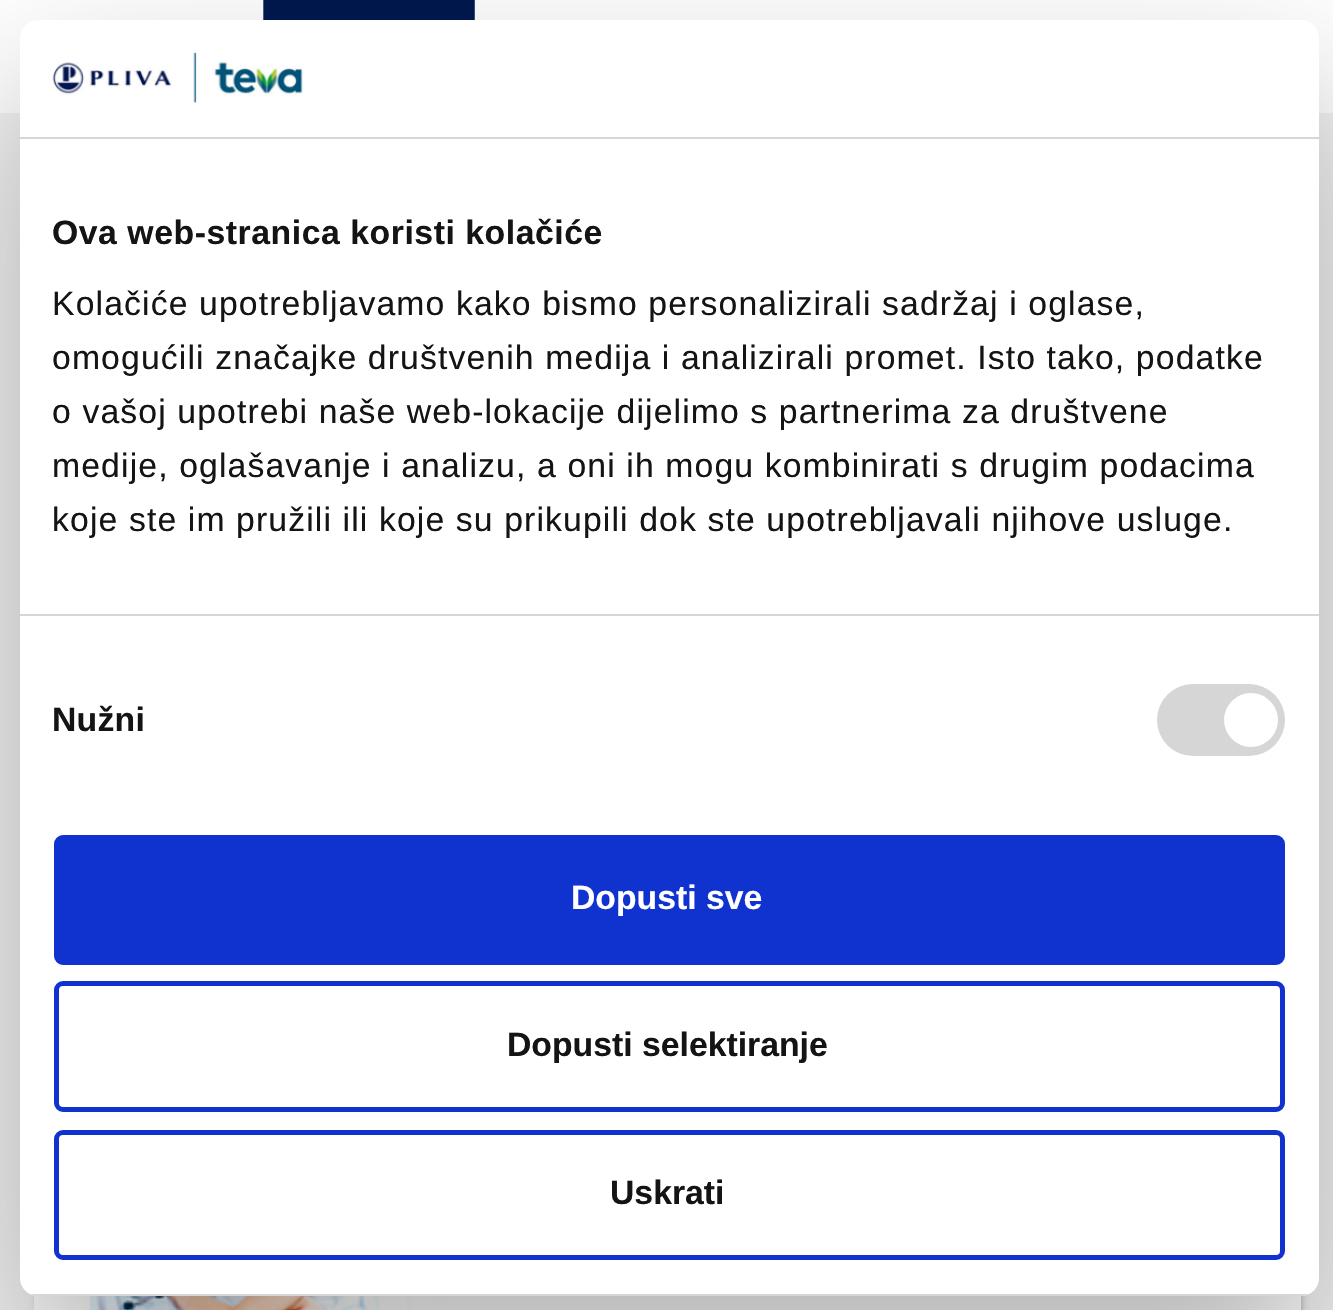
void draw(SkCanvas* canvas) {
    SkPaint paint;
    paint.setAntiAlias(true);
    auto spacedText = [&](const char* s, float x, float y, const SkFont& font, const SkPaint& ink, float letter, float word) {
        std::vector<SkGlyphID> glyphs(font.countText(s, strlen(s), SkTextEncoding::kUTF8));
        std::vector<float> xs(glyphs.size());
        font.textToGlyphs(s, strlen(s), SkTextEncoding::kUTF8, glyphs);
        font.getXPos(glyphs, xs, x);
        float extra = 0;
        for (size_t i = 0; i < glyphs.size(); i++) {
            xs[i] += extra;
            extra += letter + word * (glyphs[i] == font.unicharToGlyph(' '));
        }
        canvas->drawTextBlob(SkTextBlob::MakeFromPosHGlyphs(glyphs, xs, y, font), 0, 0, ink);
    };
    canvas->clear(0xFFF3F3F3);
    paint.setColor(0xFFFFFFFF);
    canvas->drawRect(SkRect::MakeXYWH(0, 0, 1333, 113), paint);
    canvas->drawImageRect(SkImages::DeferredFromEncodedData(SkData::MakeFromFileName("img1.png")), SkRect::MakeXYWH(42, 0, 433, 20), SkSamplingOptions());
    paint.setColor(0x4D000000);
    paint.setMaskFilter(SkMaskFilter::MakeBlur(kNormal_SkBlurStyle, 3.5f));
    canvas->drawRect(SkRect::MakeXYWH(38, 275, 1263, 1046), paint);
    paint.setMaskFilter(nullptr);
    paint.setColor(0xFFFFFFFF);
    canvas->drawRect(SkRect::MakeXYWH(34, 1295, 1267, 15), paint);
    canvas->drawImageRect(SkImages::DeferredFromEncodedData(SkData::MakeFromFileName("img3.png")), SkRect::MakeXYWH(90, 1296, 360, 14), SkSamplingOptions());
    paint.setColor(0x4D000000);
    paint.setMaskFilter(SkMaskFilter::MakeBlur(kNormal_SkBlurStyle, 76.5f));
    canvas->drawRoundRect(SkRect::MakeXYWH(20, 92, 1299, 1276), 18, 18, paint);
    paint.setMaskFilter(nullptr);
    paint.setColor(0xFFFFFFFF);
    canvas->drawRoundRect(SkRect::MakeXYWH(20, 20, 1299, 1276), 18, 18, paint);
    paint.setColor(0xFFD6D6D6);
    canvas->drawRect(SkRect::MakeXYWH(20, 137, 1299, 2), paint);
    canvas->drawImageRect(SkImages::DeferredFromEncodedData(SkData::MakeFromFileName("img2.png")), SkRect::MakeXYWH(52, 52, 251, 51), SkSamplingOptions());
    canvas->drawRect(SkRect::MakeXYWH(20, 614, 1299, 2), paint);
    SkFont font1(fontMgr->matchFamilyStyle("Liberation Sans", SkFontStyle::Bold()), 33.75f);
    font1.setSubpixel(true);
    paint.setColor(0xFF141414);
    spacedText("Ova web-stranica koristi kolačiće", 52, 244, font1, paint, 0.55f, 0);
    SkFont font2(fontMgr->matchFamilyStyle("Liberation Sans", SkFontStyle::Normal()), 33.75f);
    font2.setSubpixel(true);
    spacedText("Kolačiće upotrebljavamo kako bismo personalizirali sadržaj i oglase,", 52, 315, font2, paint, 1.12f, 0);
    spacedText("omogućili značajke društvenih medija i analizirali promet. Isto tako, podatke", 52, 369, font2, paint, 1.12f, 0);
    spacedText("o vašoj upotrebi naše web-lokacije dijelimo s partnerima za društvene", 52, 423, font2, paint, 1.12f, 0);
    spacedText("medije, oglašavanje i analizu, a oni ih mogu kombinirati s drugim podacima", 52, 477, font2, paint, 1.12f, 0);
    spacedText("koje ste im pružili ili koje su prikupili dok ste upotrebljavali njihove usluge.", 52, 531, font2, paint, 1.12f, 0);
    spacedText("Nužni", 52, 731, font1, paint, 0.25f, 0);
    paint.setColor(0xFFD6D6D6);
    canvas->drawRoundRect(SkRect::MakeXYWH(1157, 684, 128, 72), 36, 36, paint);
    paint.setColor(0xFFFFFFFF);
    canvas->drawCircle(1251, 720, 27, paint);
    canvas->save();
    canvas->clipPath(SkPathBuilder().moveTo(38, 20).lineTo(1301, 20).cubicTo(1311, 20, 1319, 28, 1319, 38).lineTo(1319, 1278).cubicTo(1319, 1288, 1311, 1296, 1301, 1296).lineTo(38, 1296).cubicTo(28, 1296, 20, 1288, 20, 1278).lineTo(20, 38).cubicTo(20, 28, 28, 20, 38, 20).close().detach(), true);
    paint.setColor(0xFFD6D6D6);
    canvas->drawRect(SkRect::MakeXYWH(30, 1294, 1279, 2), paint);
    canvas->restore();
    paint.setColor(0xFF1032CF);
    canvas->drawRoundRect(SkRect::MakeXYWH(56.5f, 837.5f, 1226, 125), 6.5f, 6.5f, paint);
    paint.setStyle(SkPaint::kStroke_Style);
    paint.setStrokeWidth(5);
    canvas->drawRoundRect(SkRect::MakeXYWH(56.5f, 837.5f, 1226, 125), 6.5f, 6.5f, paint);
    paint.setStyle(SkPaint::kFill_Style);
    paint.setColor(0xFFFFFFFF);
    canvas->drawString("Dopusti sve", 571, 909, font1, paint);
    paint.setStyle(SkPaint::kStroke_Style);
    paint.setColor(0xFF1032CF);
    canvas->drawRoundRect(SkRect::MakeXYWH(56.5f, 983.5f, 1226, 126), 6.5f, 6.5f, paint);
    paint.setStyle(SkPaint::kFill_Style);
    paint.setColor(0xFF141414);
    canvas->drawString("Dopusti selektiranje", 507, 1056, font1, paint);
    paint.setStyle(SkPaint::kStroke_Style);
    paint.setColor(0xFF1032CF);
    canvas->drawRoundRect(SkRect::MakeXYWH(56.5f, 1132.5f, 1226, 125), 6.5f, 6.5f, paint);
    paint.setStyle(SkPaint::kFill_Style);
    paint.setColor(0xFF141414);
    canvas->drawString("Uskrati", 610, 1204, font1, paint);
}
